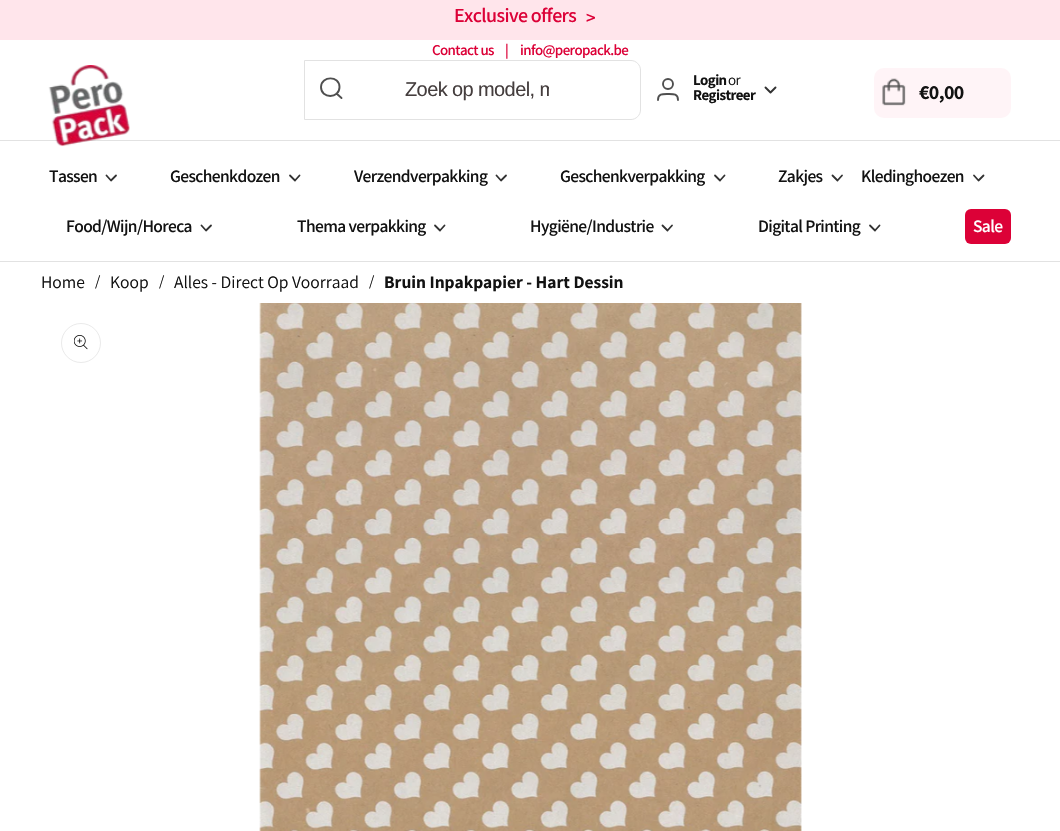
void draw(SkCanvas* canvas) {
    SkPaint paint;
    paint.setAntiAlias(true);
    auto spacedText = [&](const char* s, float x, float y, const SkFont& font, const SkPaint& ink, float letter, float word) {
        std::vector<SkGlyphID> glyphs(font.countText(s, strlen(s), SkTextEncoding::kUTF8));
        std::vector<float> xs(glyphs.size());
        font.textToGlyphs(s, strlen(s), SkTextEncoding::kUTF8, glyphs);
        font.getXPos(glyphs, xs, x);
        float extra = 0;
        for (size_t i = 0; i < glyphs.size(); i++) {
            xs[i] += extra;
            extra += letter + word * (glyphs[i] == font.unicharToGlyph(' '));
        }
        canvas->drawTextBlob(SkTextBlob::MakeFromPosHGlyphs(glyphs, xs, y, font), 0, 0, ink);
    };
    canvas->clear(0xFFFFFFFF);
    paint.setColor(0xFFFFE5EB);
    canvas->drawRect(SkRect::MakeXYWH(0, 0, 1060, 40), paint);
    SkFont font1(fontMgr->matchFamilyStyle("Assistant", SkFontStyle(600, SkFontStyle::kNormal_Width, SkFontStyle::kUpright_Slant)), 20);
    font1.setSubpixel(true);
    paint.setColor(0xFFDC0137);
    spacedText("Exclusive offers", 454, 22, font1, paint, -0.6f, 0);
    SkFont font2(fontMgr->matchFamilyStyle("Assistant", SkFontStyle(600, SkFontStyle::kNormal_Width, SkFontStyle::kUpright_Slant)), 19);
    font2.setSubpixel(true);
    spacedText(">", 586, 24, font2, paint, -0.6f, 0);
    SkFont font3(fontMgr->matchFamilyStyle("Assistant", SkFontStyle(600, SkFontStyle::kNormal_Width, SkFontStyle::kUpright_Slant)), 15);
    font3.setSubpixel(true);
    spacedText("Contact us", 432, 55, font3, paint, -0.6f, 0);
    spacedText("|", 505, 55, font3, paint, -0.6f, 0);
    spacedText("info@peropack.be", 520, 55, font3, paint, -0.6f, 0);
    paint.setColor(0xFFE2E2E2);
    canvas->drawRect(SkRect::MakeXYWH(0, 140, 1060, 1), paint);
    canvas->drawImageRect(SkImages::DeferredFromEncodedData(SkData::MakeFromFileName("img1.png")), SkRect::MakeXYWH(48, 65, 82, 82), SkSamplingOptions());
    paint.setStyle(SkPaint::kStroke_Style);
    paint.setStrokeWidth(1);
    canvas->drawPath(SkPathBuilder().moveTo(304.5f, 60.5f).lineTo(631, 60.5f).cubicTo(636, 60.5f, 640.5f, 65, 640.5f, 70).lineTo(640.5f, 110).cubicTo(640.5f, 115, 636, 119.5f, 631, 119.5f).lineTo(304.5f, 119.5f).close().detach(), paint);
    paint.setStrokeWidth(1.9f);
    paint.setStrokeCap(SkPaint::kRound_Cap);
    paint.setStrokeJoin(SkPaint::kRound_Join);
    paint.setColor(0xFF4F4F4F);
    canvas->drawPath(SkPathBuilder().moveTo(341.5f, 98).lineTo(336.5f, 93.5f).moveTo(321, 87).cubicTo(321, 99, 339.5f, 99, 339.5f, 87).cubicTo(339.5f, 75.5f, 321.5f, 75.5f, 321, 87).detach(), paint);
    canvas->save();
    canvas->clipRect(SkRect::MakeXYWH(355, 79, 194, 22));
    SkFont font4(fontMgr->matchFamilyStyle("Liberation Sans", SkFontStyle::Normal()), 20);
    font4.setSubpixel(true);
    paint.setStyle(SkPaint::kFill_Style);
    paint.setColor(0xFF453E3E);
    spacedText("Zoek op model, m", 405, 96, font4, paint, -0.6f, 0);
    canvas->restore();
    paint.setStyle(SkPaint::kStroke_Style);
    paint.setStrokeCap(SkPaint::kButt_Cap);
    paint.setStrokeJoin(SkPaint::kMiter_Join);
    paint.setColor(0xFF4F4F4F);
    canvas->drawCircle(668, 84, 5, paint);
    paint.setStrokeCap(SkPaint::kRound_Cap);
    paint.setStrokeJoin(SkPaint::kRound_Join);
    canvas->drawPath(SkPathBuilder().moveTo(678, 100).cubicTo(678, 93.5f, 673, 94, 668, 94).cubicTo(663, 94, 658, 93.5f, 658, 100).detach(), paint);
    SkFont font5(fontMgr->matchFamilyStyle("Assistant", SkFontStyle::Bold()), 15);
    font5.setSubpixel(true);
    paint.setStyle(SkPaint::kFill_Style);
    paint.setColor(0xFF121212);
    spacedText("Login", 693, 85, font5, paint, -0.6f, 0);
    SkFont font6(fontMgr->matchFamilyStyle("Assistant", SkFontStyle::Normal()), 15);
    font6.setSubpixel(true);
    spacedText("or", 728, 85, font6, paint, -0.6f, 0);
    spacedText("Registreer", 693, 100, font5, paint, -0.6f, 0);
    paint.setStyle(SkPaint::kStroke_Style);
    paint.setColor(0xFF323232);
    canvas->drawPath(SkPathBuilder().moveTo(765.5f, 87.5f).lineTo(770.5f, 92.5f).lineTo(775.5f, 87.5f).detach(), paint);
    paint.setStyle(SkPaint::kFill_Style);
    paint.setColor(0xFFFFF4F7);
    canvas->drawRoundRect(SkRect::MakeXYWH(874, 68, 137, 50), 10, 10, paint);
    canvas->drawImageRect(SkImages::DeferredFromEncodedData(SkData::MakeFromFileName("img2.png")), SkRect::MakeXYWH(882, 78, 24, 28), SkSamplingOptions());
    SkFont font7(fontMgr->matchFamilyStyle("Assistant", SkFontStyle::Bold()), 20);
    font7.setSubpixel(true);
    paint.setColor(0xFF121212);
    spacedText("€0,00", 919, 99, font7, paint, -0.6f, 0);
    SkFont font8(fontMgr->matchFamilyStyle("Assistant", SkFontStyle(600, SkFontStyle::kNormal_Width, SkFontStyle::kUpright_Slant)), 17.5f);
    font8.setSubpixel(true);
    spacedText("Tassen", 49, 182, font8, paint, -0.6f, 0);
    paint.setStyle(SkPaint::kStroke_Style);
    paint.setStrokeWidth(1.8f);
    paint.setColor(0xFF323232);
    canvas->drawPath(SkPathBuilder().moveTo(106.5f, 175.5f).lineTo(111, 180.5f).lineTo(116, 175.5f).detach(), paint);
    paint.setStyle(SkPaint::kFill_Style);
    paint.setColor(0xFF121212);
    spacedText("Geschenkdozen", 170, 182, font8, paint, -0.6f, 0);
    paint.setStyle(SkPaint::kStroke_Style);
    paint.setColor(0xFF323232);
    canvas->drawPath(SkPathBuilder().moveTo(290, 175.5f).lineTo(295, 180.5f).lineTo(299.5f, 175.5f).detach(), paint);
    paint.setStyle(SkPaint::kFill_Style);
    paint.setColor(0xFF121212);
    spacedText("Verzendverpakking", 354, 182, font8, paint, -0.6f, 0);
    paint.setStyle(SkPaint::kStroke_Style);
    paint.setColor(0xFF323232);
    canvas->drawPath(SkPathBuilder().moveTo(496.5f, 175.5f).lineTo(501, 180.5f).lineTo(506, 175.5f).detach(), paint);
    paint.setStyle(SkPaint::kFill_Style);
    paint.setColor(0xFF121212);
    spacedText("Geschenkverpakking", 560, 182, font8, paint, -0.6f, 0);
    paint.setStyle(SkPaint::kStroke_Style);
    paint.setColor(0xFF323232);
    canvas->drawPath(SkPathBuilder().moveTo(715, 175.5f).lineTo(720, 180.5f).lineTo(724.5f, 175.5f).detach(), paint);
    paint.setStyle(SkPaint::kFill_Style);
    paint.setColor(0xFF121212);
    spacedText("Zakjes", 778, 182, font8, paint, -0.6f, 0);
    paint.setStyle(SkPaint::kStroke_Style);
    paint.setColor(0xFF323232);
    canvas->drawPath(SkPathBuilder().moveTo(832.5f, 175.5f).lineTo(837.5f, 180.5f).lineTo(842, 175.5f).detach(), paint);
    paint.setStyle(SkPaint::kFill_Style);
    paint.setColor(0xFF121212);
    spacedText("Kledinghoezen", 861, 182, font8, paint, -0.6f, 0);
    paint.setStyle(SkPaint::kStroke_Style);
    paint.setColor(0xFF323232);
    canvas->drawPath(SkPathBuilder().moveTo(974, 175.5f).lineTo(978.5f, 180.5f).lineTo(983.5f, 175.5f).detach(), paint);
    paint.setStyle(SkPaint::kFill_Style);
    paint.setColor(0xFF121212);
    spacedText("Food/Wijn/Horeca", 66, 232, font8, paint, -0.6f, 0);
    paint.setStyle(SkPaint::kStroke_Style);
    paint.setColor(0xFF323232);
    canvas->drawPath(SkPathBuilder().moveTo(201.5f, 225.5f).lineTo(206, 230.5f).lineTo(211, 225.5f).detach(), paint);
    paint.setStyle(SkPaint::kFill_Style);
    paint.setColor(0xFF121212);
    spacedText("Thema verpakking", 297, 232, font8, paint, -0.6f, 0);
    paint.setStyle(SkPaint::kStroke_Style);
    paint.setColor(0xFF323232);
    canvas->drawPath(SkPathBuilder().moveTo(435, 225.5f).lineTo(440, 230.5f).lineTo(444.5f, 225.5f).detach(), paint);
    paint.setStyle(SkPaint::kFill_Style);
    paint.setColor(0xFF121212);
    spacedText("Hygiëne/Industrie", 530, 232, font8, paint, -0.6f, 0);
    paint.setStyle(SkPaint::kStroke_Style);
    paint.setColor(0xFF323232);
    canvas->drawPath(SkPathBuilder().moveTo(662.5f, 225.5f).lineTo(667.5f, 230.5f).lineTo(672, 225.5f).detach(), paint);
    paint.setStyle(SkPaint::kFill_Style);
    paint.setColor(0xFF121212);
    spacedText("Digital Printing", 758, 232, font8, paint, -0.6f, 0);
    paint.setStyle(SkPaint::kStroke_Style);
    paint.setColor(0xFF323232);
    canvas->drawPath(SkPathBuilder().moveTo(870, 225.5f).lineTo(875, 230.5f).lineTo(879.5f, 225.5f).detach(), paint);
    paint.setStyle(SkPaint::kFill_Style);
    paint.setColor(0xFFDC0137);
    canvas->drawRoundRect(SkRect::MakeXYWH(965, 209, 46, 35), 6, 6, paint);
    paint.setColor(0xFFFFFFFF);
    spacedText("Sale", 973, 232, font8, paint, -0.6f, 0);
    paint.setColor(0xFFE2E2E2);
    canvas->drawRect(SkRect::MakeXYWH(0, 261, 1060, 1), paint);
    SkFont font9(fontMgr->matchFamilyStyle("Assistant", SkFontStyle::Normal()), 17.5f);
    font9.setSubpixel(true);
    paint.setColor(0xFF121212);
    canvas->drawString("Home", 41, 288, font9, paint);
    canvas->drawString("/", 95, 286, font6, paint);
    canvas->drawString("Koop", 110, 288, font9, paint);
    canvas->drawString("/", 159, 286, font6, paint);
    canvas->drawString("Alles - Direct Op Voorraad", 174, 288, font9, paint);
    canvas->drawString("/", 369, 286, font6, paint);
    SkFont font10(fontMgr->matchFamilyStyle("Assistant", SkFontStyle::Bold()), 17.5f);
    font10.setSubpixel(true);
    canvas->drawString("Bruin Inpakpapier - Hart Dessin", 384, 288, font10, paint);
    canvas->drawImageRect(SkImages::DeferredFromEncodedData(SkData::MakeFromFileName("img3.png")), SkRect::MakeXYWH(74, 335, 14, 15), SkSamplingOptions());
    paint.setStyle(SkPaint::kStroke_Style);
    paint.setStrokeWidth(1);
    paint.setStrokeCap(SkPaint::kButt_Cap);
    paint.setStrokeJoin(SkPaint::kMiter_Join);
    paint.setColor(0xFFEAEAEA);
    canvas->drawCircle(81, 343, 19.5f, paint);
    canvas->drawImageRect(SkImages::DeferredFromEncodedData(SkData::MakeFromFileName("img4.png")), SkRect::MakeXYWH(259, 303, 543, 528), SkSamplingOptions());
}
